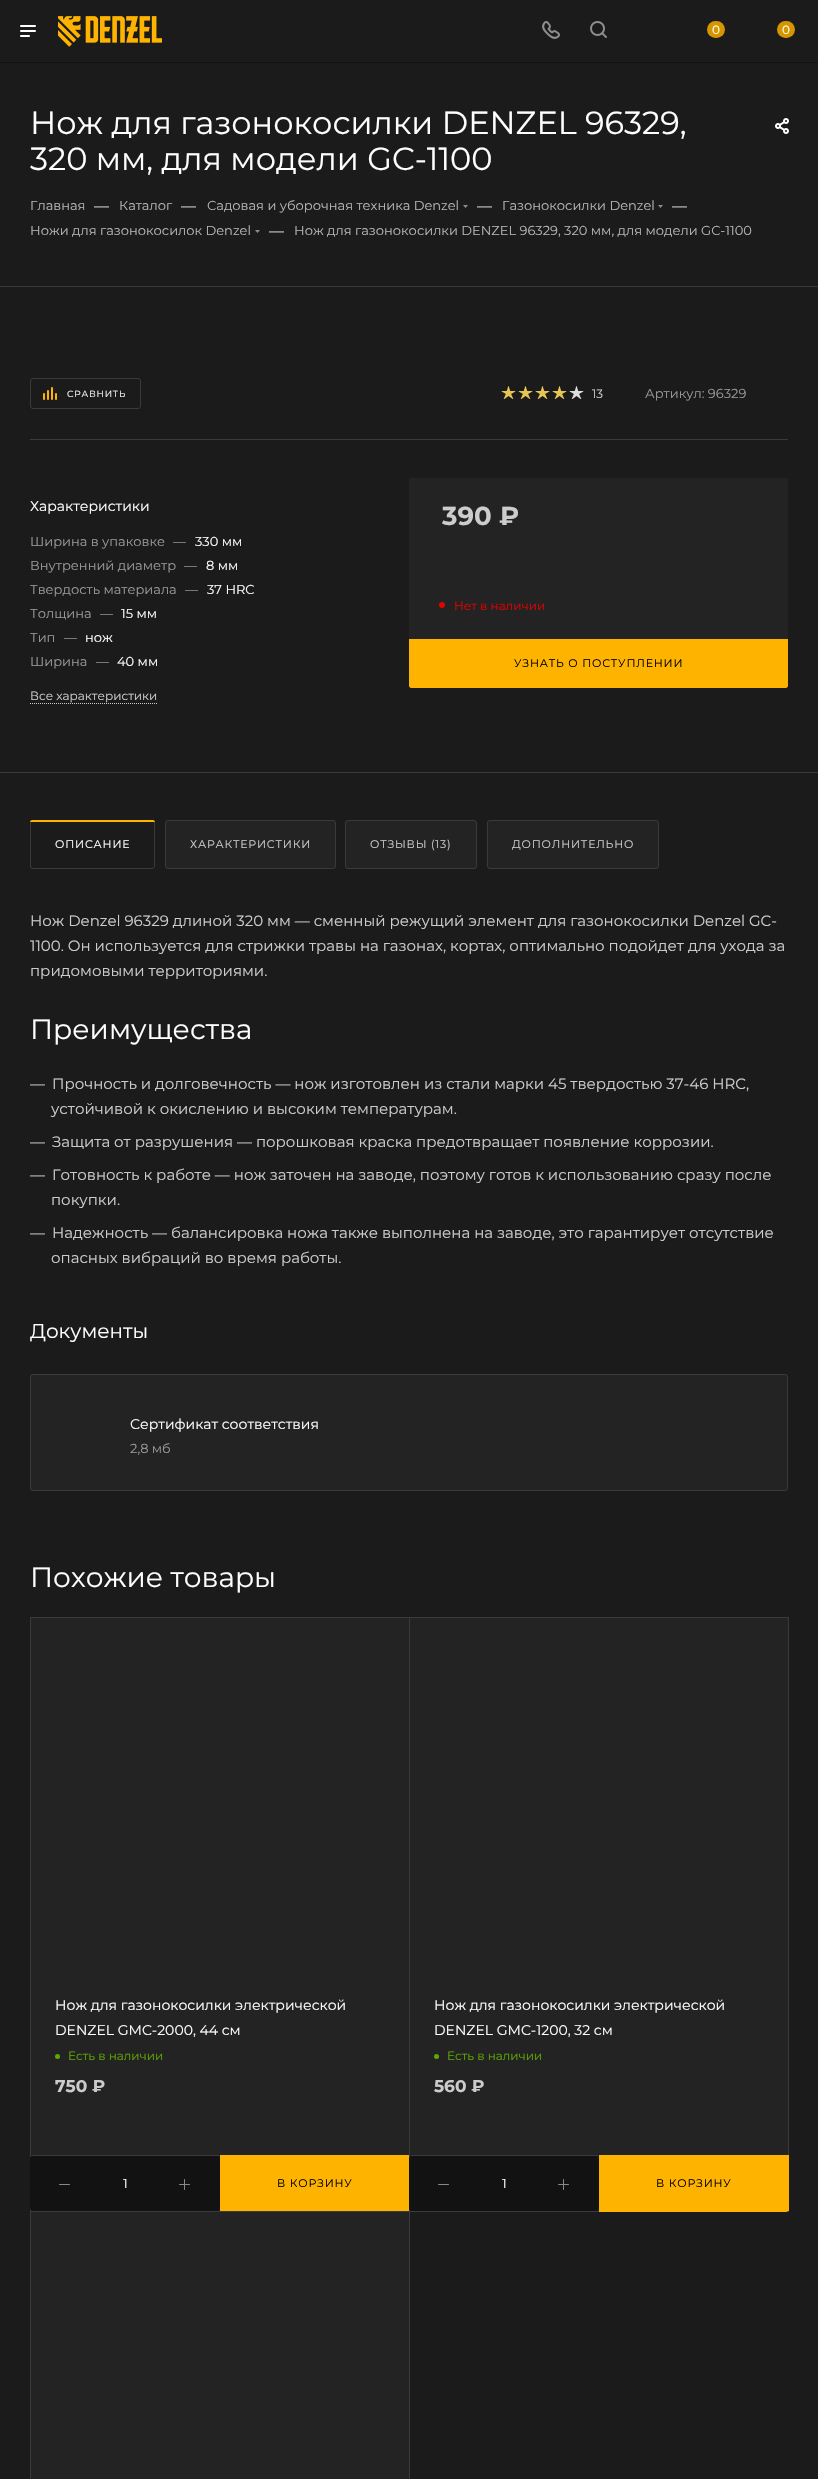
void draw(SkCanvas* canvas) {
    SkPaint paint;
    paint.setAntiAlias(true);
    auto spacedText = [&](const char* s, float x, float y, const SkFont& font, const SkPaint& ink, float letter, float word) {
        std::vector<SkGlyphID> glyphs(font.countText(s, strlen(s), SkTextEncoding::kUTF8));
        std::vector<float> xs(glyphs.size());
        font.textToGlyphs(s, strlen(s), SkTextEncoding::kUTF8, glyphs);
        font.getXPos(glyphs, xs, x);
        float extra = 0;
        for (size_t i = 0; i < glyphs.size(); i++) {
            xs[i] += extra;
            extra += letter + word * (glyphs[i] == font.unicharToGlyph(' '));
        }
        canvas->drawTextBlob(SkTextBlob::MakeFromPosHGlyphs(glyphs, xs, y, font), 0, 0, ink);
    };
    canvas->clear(0xFF1B1B1B);
    paint.setColor(0xFF121212);
    canvas->drawRect(SkRect::MakeXYWH(0, 62, 818, 1), paint);
    canvas->drawImageRect(SkImages::DeferredFromEncodedData(SkData::MakeFromFileName("img1.png")), SkRect::MakeXYWH(20, 25, 16, 12), SkSamplingOptions());
    canvas->drawImageRect(SkImages::DeferredFromEncodedData(SkData::MakeFromFileName("img2.png")), SkRect::MakeXYWH(58, 16, 104, 31), SkSamplingOptions());
    canvas->drawImageRect(SkImages::DeferredFromEncodedData(SkData::MakeFromFileName("img3.png")), SkRect::MakeXYWH(542, 21, 18, 18), SkSamplingOptions());
    canvas->drawImageRect(SkImages::DeferredFromEncodedData(SkData::MakeFromFileName("img4.png")), SkRect::MakeXYWH(590, 21, 17, 17), SkSamplingOptions());
    paint.setColor(0xFFD59600);
    canvas->drawRoundRect(SkRect::MakeXYWH(707, 21, 18, 17), 8.5f, 8.5f, paint);
    SkFont font1(fontMgr->matchFamilyStyle("Montserrat", SkFontStyle::Normal()), 12);
    font1.setSubpixel(true);
    paint.setColor(0xFFFFFFFF);
    canvas->drawString("0", 712, 34, font1, paint);
    paint.setColor(0xFFD59600);
    canvas->drawRoundRect(SkRect::MakeXYWH(777, 21, 18, 17), 8.5f, 8.5f, paint);
    paint.setColor(0xFFFFFFFF);
    canvas->drawString("0", 782, 34, font1, paint);
    SkFont font2(fontMgr->matchFamilyStyle("Montserrat", SkFontStyle::Normal()), 32);
    font2.setSubpixel(true);
    canvas->drawString("Нож для газонокосилки DENZEL 96329,", 30, 134, font2, paint);
    canvas->drawString("320 мм, для модели GC-1100", 30, 170, font2, paint);
    canvas->drawImageRect(SkImages::DeferredFromEncodedData(SkData::MakeFromFileName("img5.png")), SkRect::MakeXYWH(775, 118, 14, 16), SkSamplingOptions());
    SkFont font3(fontMgr->matchFamilyStyle("Montserrat", SkFontStyle::Normal()), 13);
    font3.setSubpixel(true);
    paint.setColor(0xFFB6B5B5);
    canvas->drawString("Главная", 30, 210, font3, paint);
    SkFont font4(fontMgr->matchFamilyStyle("Montserrat", SkFontStyle::Normal()), 15);
    font4.setSubpixel(true);
    paint.setColor(0xFFDDDDDD);
    canvas->drawString("—", 94, 211, font4, paint);
    paint.setColor(0xFFB6B5B5);
    canvas->drawString("Каталог", 119, 210, font3, paint);
    paint.setColor(0xFFDDDDDD);
    canvas->drawString("—", 181, 211, font4, paint);
    paint.setColor(0xFFB6B5B5);
    canvas->drawString("Садовая и уборочная техника Denzel", 207, 210, font3, paint);
    paint.setColor(0xFF8D8D8D);
    canvas->drawPath(SkPathBuilder(SkPathFillType::kEvenOdd).moveTo(463, 205).lineTo(468, 205).lineTo(465.5f, 208).close().detach(), paint);
    paint.setColor(0xFFDDDDDD);
    canvas->drawString("—", 477, 211, font4, paint);
    paint.setColor(0xFFB6B5B5);
    canvas->drawString("Газонокосилки Denzel", 502, 210, font3, paint);
    paint.setColor(0xFF8D8D8D);
    canvas->drawPath(SkPathBuilder(SkPathFillType::kEvenOdd).moveTo(658, 205).lineTo(663, 205).lineTo(660.5f, 208).close().detach(), paint);
    paint.setColor(0xFFDDDDDD);
    canvas->drawString("—", 672, 211, font4, paint);
    paint.setColor(0xFFB6B5B5);
    canvas->drawString("Ножи для газонокосилок Denzel", 30, 235, font3, paint);
    paint.setColor(0xFF8D8D8D);
    canvas->drawPath(SkPathBuilder(SkPathFillType::kEvenOdd).moveTo(255, 230).lineTo(260, 230).lineTo(257.5f, 233).close().detach(), paint);
    paint.setColor(0xFFDDDDDD);
    canvas->drawString("—", 269, 236, font4, paint);
    paint.setColor(0xFFB6B5B5);
    canvas->drawString("Нож для газонокосилки DENZEL 96329, 320 мм, для модели GC-1100", 294, 235, font3, paint);
    paint.setColor(0xFF3A3A3A);
    canvas->drawRect(SkRect::MakeXYWH(0, 286, 818, 1), paint);
    canvas->drawRect(SkRect::MakeXYWH(0, 772, 818, 1), paint);
    canvas->drawRect(SkRect::MakeXYWH(30, 439, 758, 1), paint);
    paint.setStyle(SkPaint::kStroke_Style);
    paint.setStrokeWidth(1);
    canvas->drawRoundRect(SkRect::MakeXYWH(30.5f, 378.5f, 110, 30), 2.5f, 2.5f, paint);
    canvas->drawImageRect(SkImages::DeferredFromEncodedData(SkData::MakeFromFileName("img6.png")), SkRect::MakeXYWH(43, 387, 14, 13), SkSamplingOptions());
    SkFont font5(fontMgr->matchFamilyStyle("Montserrat", SkFontStyle::Normal()), 9);
    font5.setSubpixel(true);
    paint.setStyle(SkPaint::kFill_Style);
    paint.setColor(0xFFFFFFFF);
    spacedText("СРАВНИТЬ", 67, 397, font5, paint, 0.8f, 0);
    canvas->drawImageRect(SkImages::DeferredFromEncodedData(SkData::MakeFromFileName("img7.png")), SkRect::MakeXYWH(501, 386, 15, 13), SkSamplingOptions());
    canvas->drawImageRect(SkImages::DeferredFromEncodedData(SkData::MakeFromFileName("img7.png")), SkRect::MakeXYWH(518, 386, 15, 13), SkSamplingOptions());
    canvas->drawImageRect(SkImages::DeferredFromEncodedData(SkData::MakeFromFileName("img7.png")), SkRect::MakeXYWH(535, 386, 15, 13), SkSamplingOptions());
    canvas->drawImageRect(SkImages::DeferredFromEncodedData(SkData::MakeFromFileName("img7.png")), SkRect::MakeXYWH(552, 386, 15, 13), SkSamplingOptions());
    canvas->drawImageRect(SkImages::DeferredFromEncodedData(SkData::MakeFromFileName("img8.png")), SkRect::MakeXYWH(569, 386, 15, 13), SkSamplingOptions());
    paint.setColor(0xFFCCCCCC);
    canvas->drawString("13", 592, 398, font1, paint);
    paint.setColor(0xFF999999);
    canvas->drawString("Артикул: 96329", 645, 398, font3, paint);
    SkFont font6(fontMgr->matchFamilyStyle("Montserrat", SkFontStyle::Normal()), 14);
    font6.setSubpixel(true);
    paint.setColor(0xFFFFFFFF);
    canvas->drawString("Характеристики", 30, 511, font6, paint);
    paint.setColor(0xFF999999);
    canvas->drawString("Ширина в упаковке", 30, 546, font3, paint);
    canvas->drawString("—", 173, 546, font3, paint);
    paint.setColor(0xFFFFFFFF);
    canvas->drawString("330 мм", 195, 546, font3, paint);
    paint.setColor(0xFF999999);
    canvas->drawString("Внутренний диаметр", 30, 570, font3, paint);
    canvas->drawString("—", 184, 570, font3, paint);
    paint.setColor(0xFFFFFFFF);
    canvas->drawString("8 мм", 206, 570, font3, paint);
    paint.setColor(0xFF999999);
    canvas->drawString("Твердость материала", 30, 594, font3, paint);
    canvas->drawString("—", 185, 594, font3, paint);
    paint.setColor(0xFFFFFFFF);
    canvas->drawString("37 HRC", 207, 594, font3, paint);
    paint.setColor(0xFF999999);
    canvas->drawString("Толщина", 30, 618, font3, paint);
    canvas->drawString("—", 100, 618, font3, paint);
    paint.setColor(0xFFFFFFFF);
    canvas->drawString("15 мм", 121, 618, font3, paint);
    paint.setColor(0xFF999999);
    canvas->drawString("Тип", 30, 642, font3, paint);
    canvas->drawString("—", 64, 642, font3, paint);
    paint.setColor(0xFFFFFFFF);
    canvas->drawString("нож", 85, 642, font3, paint);
    paint.setColor(0xFF999999);
    canvas->drawString("Ширина", 30, 666, font3, paint);
    canvas->drawString("—", 96, 666, font3, paint);
    paint.setColor(0xFFFFFFFF);
    canvas->drawString("40 мм", 117, 666, font3, paint);
    paint.setColor(0xFFCCCCCC);
    canvas->drawString("Все характеристики", 30, 700, font1, paint);
    paint.setStyle(SkPaint::kStroke_Style);
    paint.setPathEffect(SkDashPathEffect::Make({{1, 1}}, 0));
    canvas->drawPath(SkPathBuilder().moveTo(30, 703.5f).lineTo(157, 703.5f).detach(), paint);
    paint.setPathEffect(nullptr);
    paint.setStyle(SkPaint::kFill_Style);
    paint.setColor(0xFF232323);
    canvas->drawRect(SkRect::MakeXYWH(409, 478, 379, 210), paint);
    SkFont font7(fontMgr->matchFamilyStyle("Montserrat", SkFontStyle::Bold()), 26);
    font7.setSubpixel(true);
    paint.setColor(0xFFCCCCCC);
    canvas->drawString("390 ₽", 442, 525, font7, paint);
    paint.setColor(0xFFE10000);
    canvas->drawCircle(442, 605, 3, paint);
    canvas->drawString("Нет в наличии", 454, 610, font1, paint);
    paint.setColor(0xFFFEB300);
    canvas->drawPath(SkPathBuilder().moveTo(409, 639).lineTo(788, 639).lineTo(788, 685).cubicTo(788, 686.5f, 786.5f, 688, 785, 688).lineTo(412, 688).cubicTo(410.5f, 688, 409, 686.5f, 409, 685).close().detach(), paint);
    canvas->drawPath(SkPathBuilder(SkPathFillType::kEvenOdd).moveTo(409, 639).lineTo(409, 685).cubicTo(409, 687, 410, 688, 412, 688).lineTo(785, 688).cubicTo(787, 688, 788, 687, 788, 685).lineTo(788, 639).close().moveTo(410, 640).lineTo(410, 687).lineTo(787, 687).lineTo(787, 640).close().detach(), paint);
    SkFont font8(fontMgr->matchFamilyStyle("Montserrat", SkFontStyle::Normal()), 11);
    font8.setSubpixel(true);
    paint.setColor(0xFF000000);
    spacedText("УЗНАТЬ О ПОСТУПЛЕНИИ", 514, 667, font8, paint, 0.8f, 0);
    paint.setColor(0xFF232323);
    canvas->drawRoundRect(SkRect::MakeXYWH(30.5f, 820.5f, 124, 48), 2.5f, 2.5f, paint);
    paint.setStyle(SkPaint::kStroke_Style);
    paint.setColor(0xFF3A3A3A);
    canvas->drawRoundRect(SkRect::MakeXYWH(30.5f, 820.5f, 124, 48), 2.5f, 2.5f, paint);
    paint.setStyle(SkPaint::kFill_Style);
    paint.setColor(0xFF1B1B1B);
    canvas->drawRoundRect(SkRect::MakeXYWH(31, 821, 123, 47), 3, 3, paint);
    paint.setColor(0xFFFEB300);
    canvas->drawPath(SkPathBuilder().moveTo(32, 820).lineTo(153, 820).cubicTo(154, 820, 155, 821, 155, 822).lineTo(30, 822).cubicTo(30, 821, 31, 820, 32, 820).close().detach(), paint);
    paint.setColor(0xFFFFFFFF);
    spacedText("ОПИСАНИЕ", 55, 848, font8, paint, 0.8f, 0);
    paint.setColor(0xFF232323);
    canvas->drawRoundRect(SkRect::MakeXYWH(165.5f, 820.5f, 170, 48), 2.5f, 2.5f, paint);
    paint.setStyle(SkPaint::kStroke_Style);
    paint.setColor(0xFF3A3A3A);
    canvas->drawRoundRect(SkRect::MakeXYWH(165.5f, 820.5f, 170, 48), 2.5f, 2.5f, paint);
    paint.setStyle(SkPaint::kFill_Style);
    paint.setColor(0xFFCCCCCC);
    spacedText("ХАРАКТЕРИСТИКИ", 190, 848, font8, paint, 0.8f, 0);
    paint.setColor(0xFF232323);
    canvas->drawRoundRect(SkRect::MakeXYWH(345.5f, 820.5f, 131, 48), 2.5f, 2.5f, paint);
    paint.setStyle(SkPaint::kStroke_Style);
    paint.setColor(0xFF3A3A3A);
    canvas->drawRoundRect(SkRect::MakeXYWH(345.5f, 820.5f, 131, 48), 2.5f, 2.5f, paint);
    paint.setStyle(SkPaint::kFill_Style);
    paint.setColor(0xFFCCCCCC);
    spacedText("ОТЗЫВЫ (13)", 370, 848, font8, paint, 0.8f, 0);
    paint.setColor(0xFF232323);
    canvas->drawRoundRect(SkRect::MakeXYWH(487.5f, 820.5f, 171, 48), 2.5f, 2.5f, paint);
    paint.setStyle(SkPaint::kStroke_Style);
    paint.setColor(0xFF3A3A3A);
    canvas->drawRoundRect(SkRect::MakeXYWH(487.5f, 820.5f, 171, 48), 2.5f, 2.5f, paint);
    paint.setStyle(SkPaint::kFill_Style);
    paint.setColor(0xFFCCCCCC);
    spacedText("ДОПОЛНИТЕЛЬНО", 512, 848, font8, paint, 0.8f, 0);
    canvas->drawString("Нож Denzel 96329 длиной 320 мм — сменный режущий элемент для газонокосилки Denzel GC-", 30, 926, font4, paint);
    canvas->drawString("1100. Он используется для стрижки травы на газонах, кортах, оптимально подойдет для ухода за", 30, 951, font4, paint);
    canvas->drawString("придомовыми территориями.", 30, 976, font4, paint);
    SkFont font9(fontMgr->matchFamilyStyle("Montserrat", SkFontStyle::Normal()), 28);
    font9.setSubpixel(true);
    paint.setColor(0xFFFFFFFF);
    canvas->drawString("Преимущества", 30, 1039, font9, paint);
    paint.setColor(0xFFCCCCCC);
    canvas->drawString("—", 30, 1089, font4, paint);
    canvas->drawString("Прочность и долговечность — нож изготовлен из стали марки 45 твердостью 37-46 HRC,", 52, 1089, font4, paint);
    canvas->drawString("устойчивой к окислению и высоким температурам.", 51, 1114, font4, paint);
    canvas->drawString("—", 30, 1147, font4, paint);
    canvas->drawString("Защита от разрушения — порошковая краска предотвращает появление коррозии.", 52, 1147, font4, paint);
    canvas->drawString("—", 30, 1180, font4, paint);
    canvas->drawString("Готовность к работе — нож заточен на заводе, поэтому готов к использованию сразу после", 52, 1180, font4, paint);
    canvas->drawString("покупки.", 51, 1205, font4, paint);
    canvas->drawString("—", 30, 1238, font4, paint);
    canvas->drawString("Надежность — балансировка ножа также выполнена на заводе, это гарантирует отсутствие", 52, 1238, font4, paint);
    canvas->drawString("опасных вибраций во время работы.", 51, 1263, font4, paint);
    SkFont font10(fontMgr->matchFamilyStyle("Montserrat", SkFontStyle::Normal()), 20);
    font10.setSubpixel(true);
    paint.setColor(0xFFFFFFFF);
    canvas->drawString("Документы", 30, 1338, font10, paint);
    paint.setColor(0xFF232323);
    canvas->drawRoundRect(SkRect::MakeXYWH(30.5f, 1374.5f, 757, 116), 2.5f, 2.5f, paint);
    paint.setStyle(SkPaint::kStroke_Style);
    paint.setColor(0xFF3A3A3A);
    canvas->drawRoundRect(SkRect::MakeXYWH(30.5f, 1374.5f, 757, 116), 2.5f, 2.5f, paint);
    paint.setStyle(SkPaint::kFill_Style);
    paint.setColor(0xFFFFFFFF);
    canvas->drawString("Сертификат соответствия", 130, 1429, font6, paint);
    paint.setColor(0xFF999999);
    canvas->drawString("2,8 мб", 130, 1453, font3, paint);
    paint.setColor(0xFFFFFFFF);
    canvas->drawString("Похожие товары", 30, 1587, font9, paint);
    paint.setColor(0xFF232323);
    canvas->drawRect(SkRect::MakeXYWH(30.5f, 1617.5f, 379, 594), paint);
    paint.setStyle(SkPaint::kStroke_Style);
    paint.setColor(0xFF3A3A3A);
    canvas->drawRect(SkRect::MakeXYWH(30.5f, 1617.5f, 379, 594), paint);
    paint.setStyle(SkPaint::kFill_Style);
    paint.setColor(0xFFFFFFFF);
    canvas->drawString("Нож для газонокосилки электрической", 55, 2010, font6, paint);
    canvas->drawString("DENZEL GMC-2000, 44 см", 55, 2035, font6, paint);
    paint.setColor(0xFF5FA800);
    canvas->drawCircle(57.5f, 2056.5f, 2.5f, paint);
    canvas->drawString("Есть в наличии", 68, 2060, font1, paint);
    SkFont font11(fontMgr->matchFamilyStyle("Montserrat", SkFontStyle::Bold()), 17);
    font11.setSubpixel(true);
    paint.setColor(0xFFCCCCCC);
    canvas->drawString("750 ₽", 55, 2092, font11, paint);
    paint.setColor(0xFF121212);
    canvas->drawPath(SkPathBuilder().moveTo(33, 2156).lineTo(217, 2156).cubicTo(219, 2156, 220, 2157, 220, 2158).lineTo(220, 2208).cubicTo(220, 2210, 219, 2211, 217, 2211).lineTo(33, 2211).cubicTo(31, 2211, 30, 2210, 30, 2208).lineTo(30, 2158).cubicTo(30, 2157, 31, 2156, 33, 2156).close().detach(), paint);
    paint.setColor(0xFF3A3A3A);
    canvas->drawRect(SkRect::MakeXYWH(32, 2155, 187, 1), paint);
    paint.setColor(0xFF898989);
    canvas->drawRoundRect(SkRect::MakeXYWH(59, 2184, 11, 1), 0.5f, 0.5f, paint);
    paint.setColor(0xFFFFFFFF);
    canvas->drawString("1", 123, 2188, font3, paint);
    canvas->drawImageRect(SkImages::DeferredFromEncodedData(SkData::MakeFromFileName("img9.png")), SkRect::MakeXYWH(179, 2179, 11, 11), SkSamplingOptions());
    paint.setColor(0xFFFEB300);
    canvas->drawRect(SkRect::MakeXYWH(220, 2156, 189, 55), paint);
    canvas->drawRect(SkRect::MakeXYWH(220, 2155, 190, 1), paint);
    paint.setColor(0xFF000000);
    spacedText("В КОРЗИНУ", 277, 2187, font8, paint, 0.8f, 0);
    paint.setColor(0xFF232323);
    canvas->drawRect(SkRect::MakeXYWH(409.5f, 1617.5f, 379, 594), paint);
    paint.setStyle(SkPaint::kStroke_Style);
    paint.setColor(0xFF3A3A3A);
    canvas->drawRect(SkRect::MakeXYWH(409.5f, 1617.5f, 379, 594), paint);
    paint.setStyle(SkPaint::kFill_Style);
    paint.setColor(0xFFFFFFFF);
    canvas->drawString("Нож для газонокосилки электрической", 434, 2010, font6, paint);
    canvas->drawString("DENZEL GMC-1200, 32 см", 434, 2035, font6, paint);
    paint.setColor(0xFF5FA800);
    canvas->drawCircle(436.5f, 2056.5f, 2.5f, paint);
    canvas->drawString("Есть в наличии", 447, 2060, font1, paint);
    paint.setColor(0xFFCCCCCC);
    canvas->drawString("560 ₽", 434, 2092, font11, paint);
    paint.setColor(0xFF121212);
    canvas->drawPath(SkPathBuilder().moveTo(412, 2156).lineTo(596, 2156).cubicTo(598, 2156, 599, 2157, 599, 2158).lineTo(599, 2208).cubicTo(599, 2210, 598, 2211, 596, 2211).lineTo(412, 2211).cubicTo(410, 2211, 409, 2210, 409, 2208).lineTo(409, 2158).cubicTo(409, 2157, 410, 2156, 412, 2156).close().detach(), paint);
    paint.setColor(0xFF3A3A3A);
    canvas->drawRect(SkRect::MakeXYWH(411, 2155, 187, 1), paint);
    paint.setColor(0xFF898989);
    canvas->drawRoundRect(SkRect::MakeXYWH(438, 2184, 11, 1), 0.5f, 0.5f, paint);
    paint.setColor(0xFFFFFFFF);
    canvas->drawString("1", 502, 2188, font3, paint);
    canvas->drawImageRect(SkImages::DeferredFromEncodedData(SkData::MakeFromFileName("img9.png")), SkRect::MakeXYWH(558, 2179, 11, 11), SkSamplingOptions());
    paint.setColor(0xFFFEB300);
    canvas->drawRect(SkRect::MakeXYWH(599, 2155, 190, 56), paint);
    canvas->save();
    canvas->clipPath(SkPathBuilder().moveTo(409, 2155).lineTo(789, 2155).lineTo(789, 2209).cubicTo(789, 2210.5f, 787.5f, 2212, 786, 2212).lineTo(412, 2212).cubicTo(410.5f, 2212, 409, 2210.5f, 409, 2209).close().detach(), true);
    canvas->drawRect(SkRect::MakeXYWH(599, 2211, 190, 1), paint);
    canvas->restore();
    paint.setColor(0xFF000000);
    spacedText("В КОРЗИНУ", 656, 2187, font8, paint, 0.8f, 0);
    paint.setColor(0xFF232323);
    canvas->drawRect(SkRect::MakeXYWH(30.5f, 2211.5f, 379, 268), paint);
    paint.setStyle(SkPaint::kStroke_Style);
    paint.setColor(0xFF3A3A3A);
    canvas->drawRect(SkRect::MakeXYWH(30.5f, 2211.5f, 379, 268), paint);
}
